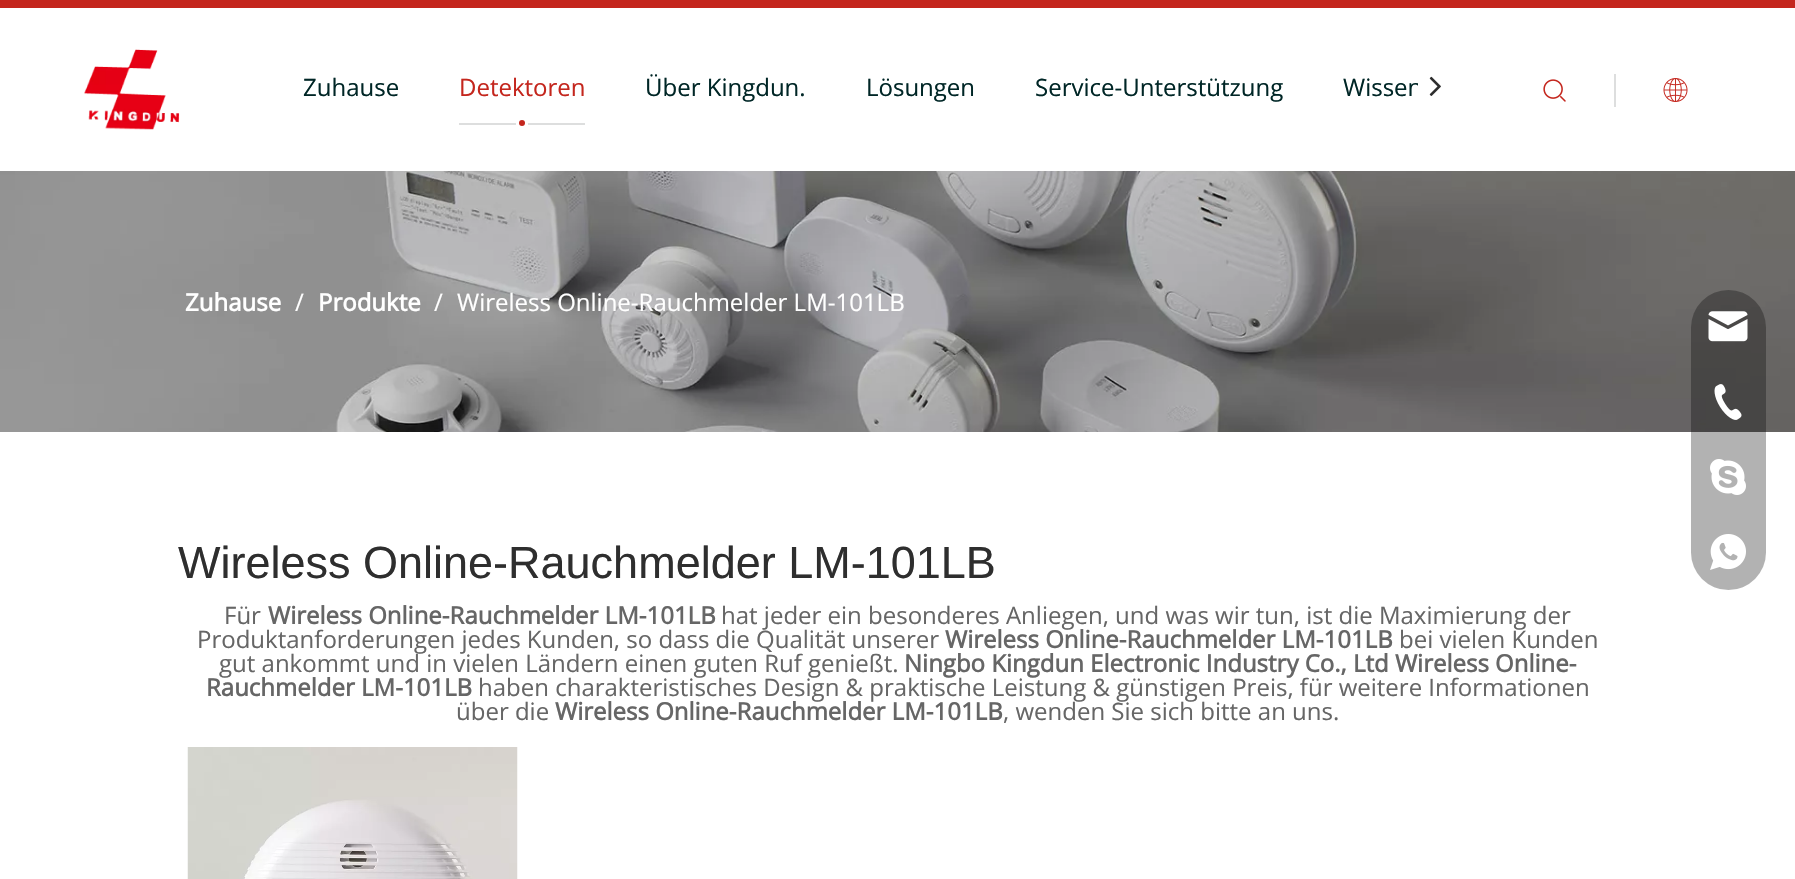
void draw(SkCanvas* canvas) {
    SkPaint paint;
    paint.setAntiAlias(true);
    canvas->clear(0xFFFFFFFF);
    paint.setColor(0xFFC4261D);
    canvas->drawRect(SkRect::MakeXYWH(0, 0, 1795, 8), paint);
    canvas->drawImageRect(SkImages::DeferredFromEncodedData(SkData::MakeFromFileName("img1.png")), SkRect::MakeXYWH(84, 49, 96, 81), SkSamplingOptions());
    SkFont font1(fontMgr->matchFamilyStyle("Open Sans", SkFontStyle::Normal()), 24);
    font1.setSubpixel(true);
    paint.setColor(0xFF002626);
    canvas->drawString("Zuhause", 303, 96, font1, paint);
    paint.setColor(0xFFC4261D);
    canvas->drawString("Detektoren", 459, 96, font1, paint);
    paint.setColor(0xFFDDDEDE);
    canvas->drawRect(SkRect::MakeXYWH(459, 123, 57, 2), paint);
    paint.setColor(0xFFC4261D);
    canvas->drawCircle(522, 123, 3, paint);
    paint.setColor(0xFFDDDEDE);
    canvas->drawRect(SkRect::MakeXYWH(528, 123, 57, 2), paint);
    paint.setColor(0xFF002626);
    canvas->drawString("Über Kingdun.", 645, 96, font1, paint);
    canvas->drawString("Lösungen", 866, 96, font1, paint);
    canvas->drawString("Service-Unterstützung", 1035, 96, font1, paint);
    canvas->drawString("Wissen", 1343, 96, font1, paint);
    paint.setColor(0xFFFFFFFF);
    canvas->drawRect(SkRect::MakeXYWH(1418, 83, 3, 13), paint);
    canvas->drawImageRect(SkImages::DeferredFromEncodedData(SkData::MakeFromFileName("img2.png")), SkRect::MakeXYWH(1429, 76, 12, 20), SkSamplingOptions());
    paint.setColor(0xFFDDDEDE);
    canvas->drawRect(SkRect::MakeXYWH(1614, 74, 2, 33), paint);
    canvas->drawImageRect(SkImages::DeferredFromEncodedData(SkData::MakeFromFileName("img3.png")), SkRect::MakeXYWH(1543, 79, 23, 23), SkSamplingOptions());
    canvas->drawImageRect(SkImages::DeferredFromEncodedData(SkData::MakeFromFileName("img4.png")), SkRect::MakeXYWH(1663, 78, 25, 24), SkSamplingOptions());
    canvas->drawImageRect(SkImages::DeferredFromEncodedData(SkData::MakeFromFileName("img5.png")), SkRect::MakeXYWH(0, 171, 1795, 261), SkSamplingOptions());
    SkFont font2(fontMgr->matchFamilyStyle("Open Sans", SkFontStyle::Bold()), 24);
    font2.setSubpixel(true);
    paint.setColor(0xFFFFFFFF);
    canvas->drawString("Zuhause", 185, 311, font2, paint);
    canvas->drawString("/", 295, 311, font1, paint);
    canvas->drawString("Produkte", 318, 311, font2, paint);
    canvas->drawString("/", 434, 311, font1, paint);
    canvas->drawString("Wireless Online-Rauchmelder LM-101LB", 457, 311, font1, paint);
    SkFont font3(fontMgr->matchFamilyStyle("Liberation Sans", SkFontStyle::Normal()), 45);
    font3.setSubpixel(true);
    paint.setColor(0xFF2E2E2E);
    canvas->drawString("Wireless Online-Rauchmelder LM-101LB", 178, 578, font3, paint);
    paint.setColor(0xFF666666);
    canvas->drawString("Für", 224, 624, font1, paint);
    canvas->drawString("Wireless Online-Rauchmelder LM-101LB", 268, 624, font2, paint);
    canvas->drawString("hat jeder ein besonderes Anliegen, und was wir tun, ist die Maximierung der", 721, 624, font1, paint);
    canvas->drawString("Produktanforderungen jedes Kunden, so dass die Qualität unserer", 197, 648, font1, paint);
    canvas->drawString("Wireless Online-Rauchmelder LM-101LB", 945, 648, font2, paint);
    canvas->drawString("bei vielen Kunden", 1399, 648, font1, paint);
    canvas->drawString("gut ankommt und in vielen Ländern einen guten Ruf genießt.", 219, 672, font1, paint);
    canvas->drawString("Ningbo Kingdun Electronic Industry Co., Ltd Wireless Online-", 904, 672, font2, paint);
    canvas->drawString("Rauchmelder LM-101LB", 206, 696, font2, paint);
    canvas->drawString("haben charakteristisches Design & praktische Leistung & günstigen Preis, für weitere Informationen", 478, 696, font1, paint);
    canvas->drawString("über die", 456, 720, font1, paint);
    canvas->drawString("Wireless Online-Rauchmelder LM-101LB", 555, 720, font2, paint);
    canvas->drawString(", wenden Sie sich bitte an uns.", 1003, 720, font1, paint);
    canvas->drawImageRect(SkImages::DeferredFromEncodedData(SkData::MakeFromFileName("img6.png")), SkRect::MakeXYWH(187, 747, 331, 132), SkSamplingOptions());
    paint.setColor(0x4D000000);
    canvas->drawRoundRect(SkRect::MakeXYWH(1691, 290, 75, 300), 37.5f, 37.5f, paint);
    canvas->drawImageRect(SkImages::DeferredFromEncodedData(SkData::MakeFromFileName("img7.png")), SkRect::MakeXYWH(1708, 311, 40, 31), SkSamplingOptions());
    canvas->drawImageRect(SkImages::DeferredFromEncodedData(SkData::MakeFromFileName("img8.png")), SkRect::MakeXYWH(1714, 384, 28, 36), SkSamplingOptions());
    canvas->drawImageRect(SkImages::DeferredFromEncodedData(SkData::MakeFromFileName("img9.png")), SkRect::MakeXYWH(1710, 459, 36, 36), SkSamplingOptions());
    canvas->drawImageRect(SkImages::DeferredFromEncodedData(SkData::MakeFromFileName("img10.png")), SkRect::MakeXYWH(1710, 534, 36, 36), SkSamplingOptions());
}
